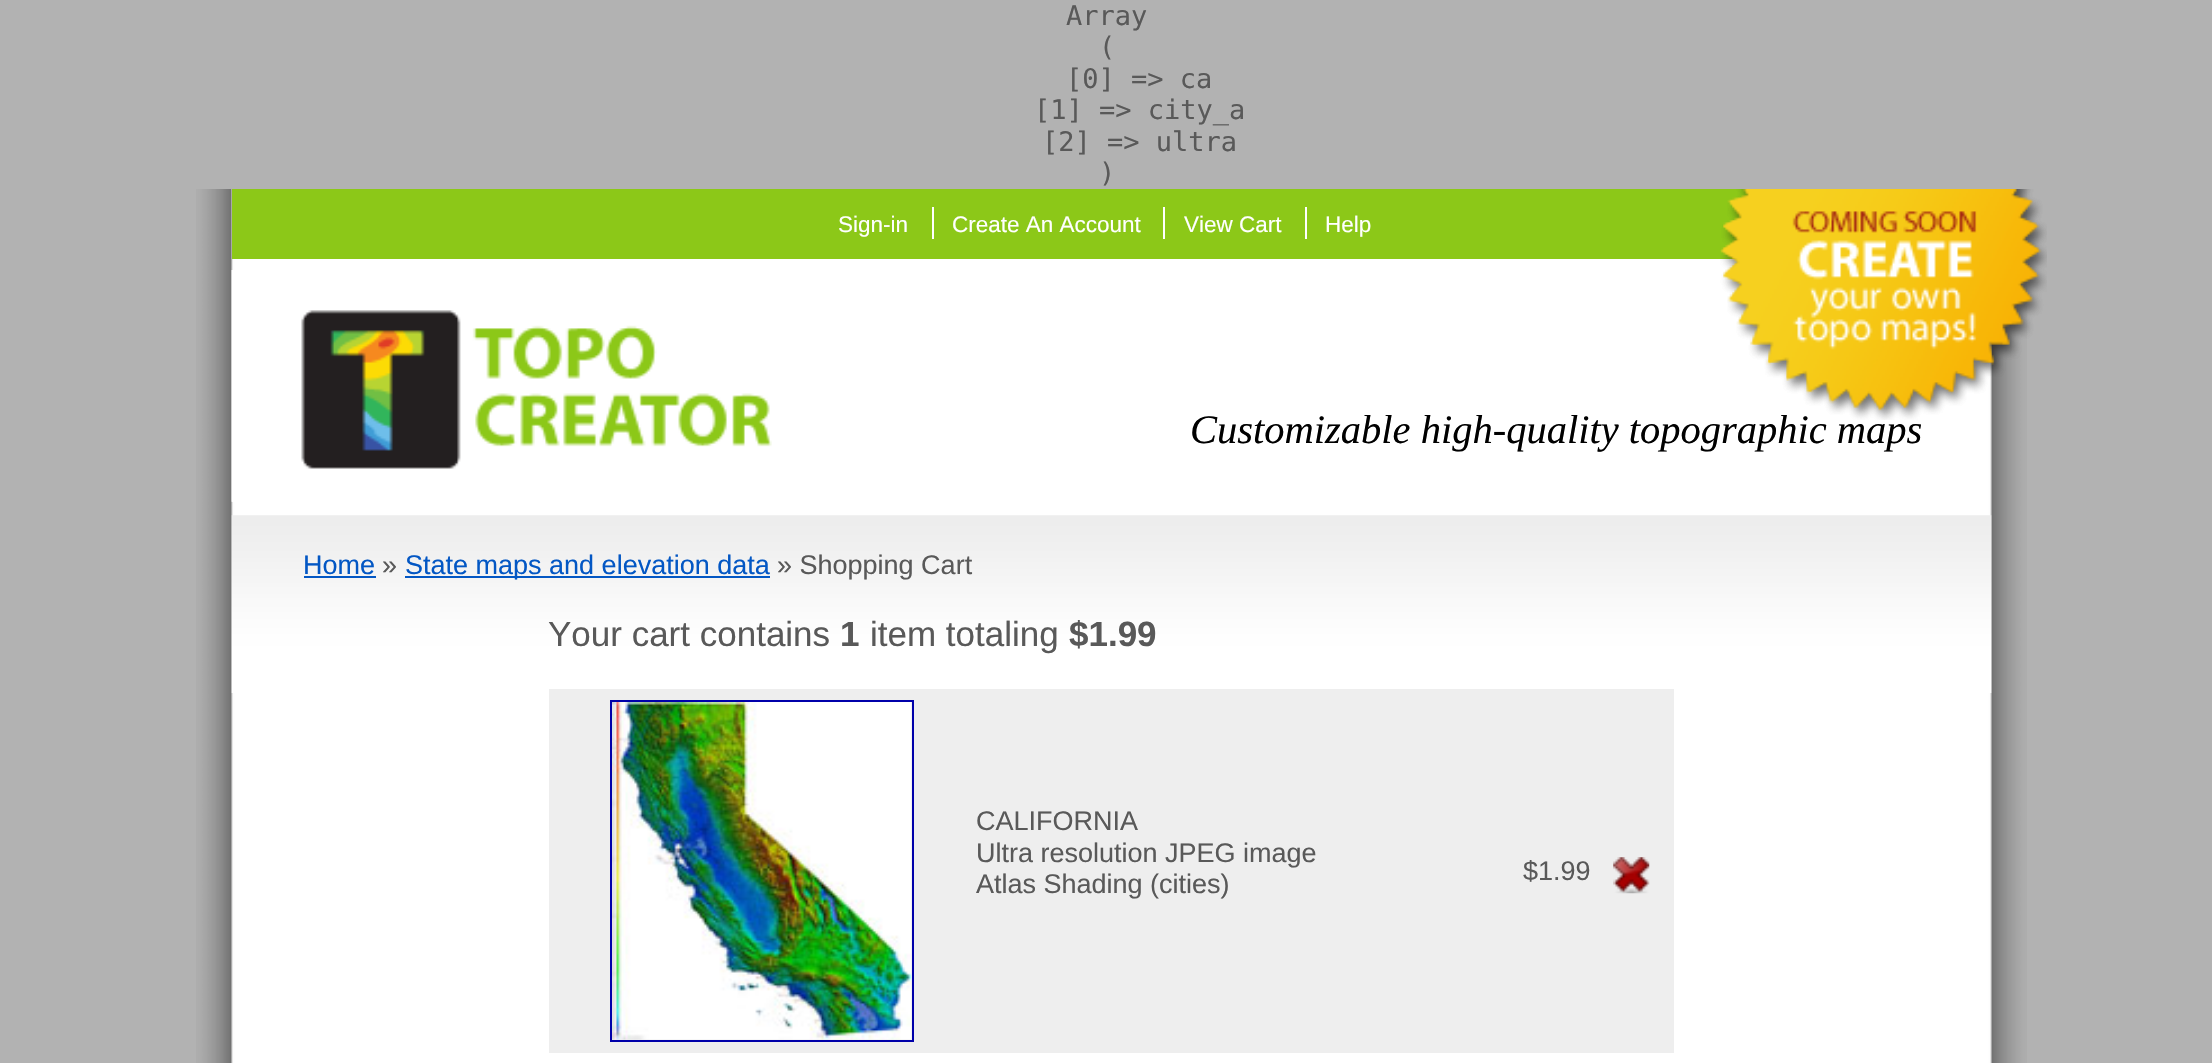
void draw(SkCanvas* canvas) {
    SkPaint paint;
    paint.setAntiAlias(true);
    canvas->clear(0xFFB2B2B2);
    SkFont font1(fontMgr->matchFamilyStyle("DejaVu Sans Mono", SkFontStyle::Normal()), 27);
    font1.setSubpixel(true);
    paint.setColor(0xFF595959);
    canvas->drawString("Array", 1066, 25, font1, paint);
    canvas->drawString("(", 1099, 56, font1, paint);
    canvas->drawString("[0] => ca", 1066, 88, font1, paint);
    canvas->drawString("[1] => city_a", 1034, 119, font1, paint);
    canvas->drawString("[2] => ultra", 1042, 151, font1, paint);
    canvas->drawString(")", 1099, 182, font1, paint);
    canvas->drawImageRect(SkImages::DeferredFromEncodedData(SkData::MakeFromFileName("img1.png")), SkRect::MakeXYWH(196, 189, 1831, 874), SkSamplingOptions());
    paint.setColor(0xFF8CC818);
    canvas->drawRect(SkRect::MakeXYWH(232, 189, 1519, 70), paint);
    SkFont font2(fontMgr->matchFamilyStyle("Liberation Serif", SkFontStyle::Italic()), 40.5f);
    font2.setSubpixel(true);
    paint.setColor(0xFF000000);
    canvas->drawString("Customizable high-quality topographic maps", 1190, 443, font2, paint);
    canvas->drawImageRect(SkImages::DeferredFromEncodedData(SkData::MakeFromFileName("img2.png")), SkRect::MakeXYWH(1720, 189, 327, 231), SkSamplingOptions());
    canvas->drawImageRect(SkImages::DeferredFromEncodedData(SkData::MakeFromFileName("img3.png")), SkRect::MakeXYWH(1720, 189, 327, 231), SkSamplingOptions());
    SkFont font3(fontMgr->matchFamilyStyle("Liberation Sans", SkFontStyle::Normal()), 22.5f);
    font3.setSubpixel(true);
    paint.setColor(0xFFFFFFFF);
    canvas->drawString("Sign-in", 838, 232, font3, paint);
    canvas->drawRect(SkRect::MakeXYWH(932, 207, 2, 32), paint);
    canvas->drawString("Create An Account", 952, 232, font3, paint);
    canvas->drawRect(SkRect::MakeXYWH(1163, 207, 2, 32), paint);
    canvas->drawString("View Cart", 1184, 232, font3, paint);
    canvas->drawRect(SkRect::MakeXYWH(1305, 207, 2, 32), paint);
    canvas->drawString("Help", 1325, 232, font3, paint);
    canvas->drawImageRect(SkImages::DeferredFromEncodedData(SkData::MakeFromFileName("img4.png")), SkRect::MakeXYWH(231, 270, 541, 232), SkSamplingOptions());
    canvas->drawImageRect(SkImages::DeferredFromEncodedData(SkData::MakeFromFileName("img5.png")), SkRect::MakeXYWH(231, 270, 2, 232), SkSamplingOptions());
    canvas->drawImageRect(SkImages::DeferredFromEncodedData(SkData::MakeFromFileName("img6.png")), SkRect::MakeXYWH(231, 515, 1761, 178), SkSamplingOptions());
    SkFont font4(fontMgr->matchFamilyStyle("Liberation Sans", SkFontStyle::Normal()), 27);
    font4.setSubpixel(true);
    paint.setColor(0xFF0357C4);
    canvas->drawString("Home", 303, 574, font4, paint);
    canvas->drawRect(SkRect::MakeXYWH(304, 576, 72, 2), paint);
    paint.setColor(0xFF595959);
    canvas->drawString("»", 382, 574, font4, paint);
    paint.setColor(0xFF0357C4);
    canvas->drawRect(SkRect::MakeXYWH(405, 576, 365, 2), paint);
    canvas->drawString("State maps and elevation data", 405, 574, font4, paint);
    paint.setColor(0xFF595959);
    canvas->drawString("» Shopping Cart", 777, 574, font4, paint);
    SkFont font5(fontMgr->matchFamilyStyle("Liberation Sans", SkFontStyle::Normal()), 35);
    font5.setSubpixel(true);
    canvas->drawString("Your cart contains", 548, 646, font5, paint);
    SkFont font6(fontMgr->matchFamilyStyle("Liberation Sans", SkFontStyle::Bold()), 35);
    font6.setSubpixel(true);
    canvas->drawString("1", 840, 646, font6, paint);
    canvas->drawString("item totaling", 870, 646, font5, paint);
    canvas->drawString("$1.99", 1069, 646, font6, paint);
    paint.setColor(0xFFEEEEEE);
    canvas->drawRect(SkRect::MakeXYWH(549, 689, 1125, 364), paint);
    paint.setStyle(SkPaint::kStroke_Style);
    paint.setStrokeWidth(2);
    paint.setColor(0xFF0000AA);
    canvas->drawRect(SkRect::MakeXYWH(611, 701, 302, 340), paint);
    canvas->drawImageRect(SkImages::DeferredFromEncodedData(SkData::MakeFromFileName("img7.png")), SkRect::MakeXYWH(612, 702, 300, 338), SkSamplingOptions());
    paint.setStyle(SkPaint::kFill_Style);
    paint.setColor(0xFF595959);
    canvas->drawString("CALIFORNIA", 976, 830, font4, paint);
    canvas->drawString("Ultra resolution JPEG image", 976, 862, font4, paint);
    canvas->drawString("Atlas Shading (cities)", 976, 893, font4, paint);
    canvas->drawString("$1.99", 1523, 880, font4, paint);
    canvas->drawImageRect(SkImages::DeferredFromEncodedData(SkData::MakeFromFileName("img8.png")), SkRect::MakeXYWH(1613, 857, 37, 37), SkSamplingOptions());
}
